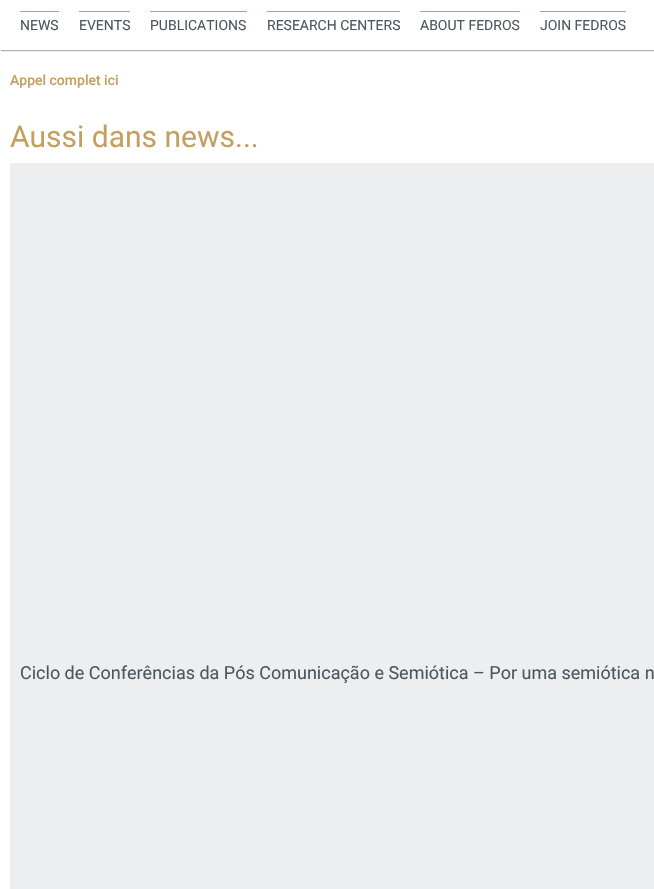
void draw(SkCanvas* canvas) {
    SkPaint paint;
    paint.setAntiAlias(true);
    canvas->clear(0xFFFFFFFF);
    paint.setColor(0xFFB0B0B0);
    paint.setMaskFilter(SkMaskFilter::MakeBlur(kNormal_SkBlurStyle, 0.5f));
    canvas->drawRect(SkRect::MakeXYWH(1, 1, 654, 50), paint);
    paint.setMaskFilter(nullptr);
    paint.setColor(0xFFFFFFFF);
    canvas->drawRect(SkRect::MakeXYWH(0, 0, 654, 50), paint);
    SkFont font1(fontMgr->matchFamilyStyle("Roboto", SkFontStyle::Normal()), 14);
    font1.setSubpixel(true);
    paint.setColor(0xFF4B575F);
    canvas->drawString("NEWS", 20, 30, font1, paint);
    paint.setColor(0xFFC49F5E);
    canvas->drawRect(SkRect::MakeXYWH(20, 11, 39, 1), paint);
    paint.setColor(0xFF4B575F);
    canvas->drawString("EVENTS", 79, 30, font1, paint);
    paint.setColor(0xFFC49F5E);
    canvas->drawRect(SkRect::MakeXYWH(79, 11, 51, 1), paint);
    paint.setColor(0xFF4B575F);
    canvas->drawString("PUBLICATIONS", 150, 30, font1, paint);
    paint.setColor(0xFFC49F5E);
    canvas->drawRect(SkRect::MakeXYWH(150, 11, 97, 1), paint);
    paint.setColor(0xFF4B575F);
    canvas->drawString("RESEARCH CENTERS", 267, 30, font1, paint);
    paint.setColor(0xFFC49F5E);
    canvas->drawRect(SkRect::MakeXYWH(267, 11, 133, 1), paint);
    paint.setColor(0xFF4B575F);
    canvas->drawString("ABOUT FEDROS", 420, 30, font1, paint);
    paint.setColor(0xFFC49F5E);
    canvas->drawRect(SkRect::MakeXYWH(420, 11, 100, 1), paint);
    paint.setColor(0xFF4B575F);
    canvas->drawString("JOIN FEDROS", 540, 30, font1, paint);
    paint.setColor(0xFFC49F5E);
    canvas->drawRect(SkRect::MakeXYWH(540, 11, 86, 1), paint);
    SkFont font2(fontMgr->matchFamilyStyle("Roboto", SkFontStyle(500, SkFontStyle::kNormal_Width, SkFontStyle::kUpright_Slant)), 14);
    font2.setSubpixel(true);
    canvas->drawString("Appel complet ici", 10, 85, font2, paint);
    SkFont font3(fontMgr->matchFamilyStyle("Roboto", SkFontStyle::Normal()), 30);
    font3.setSubpixel(true);
    canvas->drawString("Aussi dans news...", 10, 147, font3, paint);
    paint.setColor(0xFFECEEF0);
    canvas->drawRect(SkRect::MakeXYWH(10, 163, 644, 726), paint);
    SkFont font4(fontMgr->matchFamilyStyle("Roboto", SkFontStyle::Normal()), 18);
    font4.setSubpixel(true);
    paint.setColor(0xFF4B575F);
    canvas->drawString("Ciclo de Conferências da Pós Comunicação e Semiótica – Por uma semiótica n", 20, 679, font4, paint);
}
